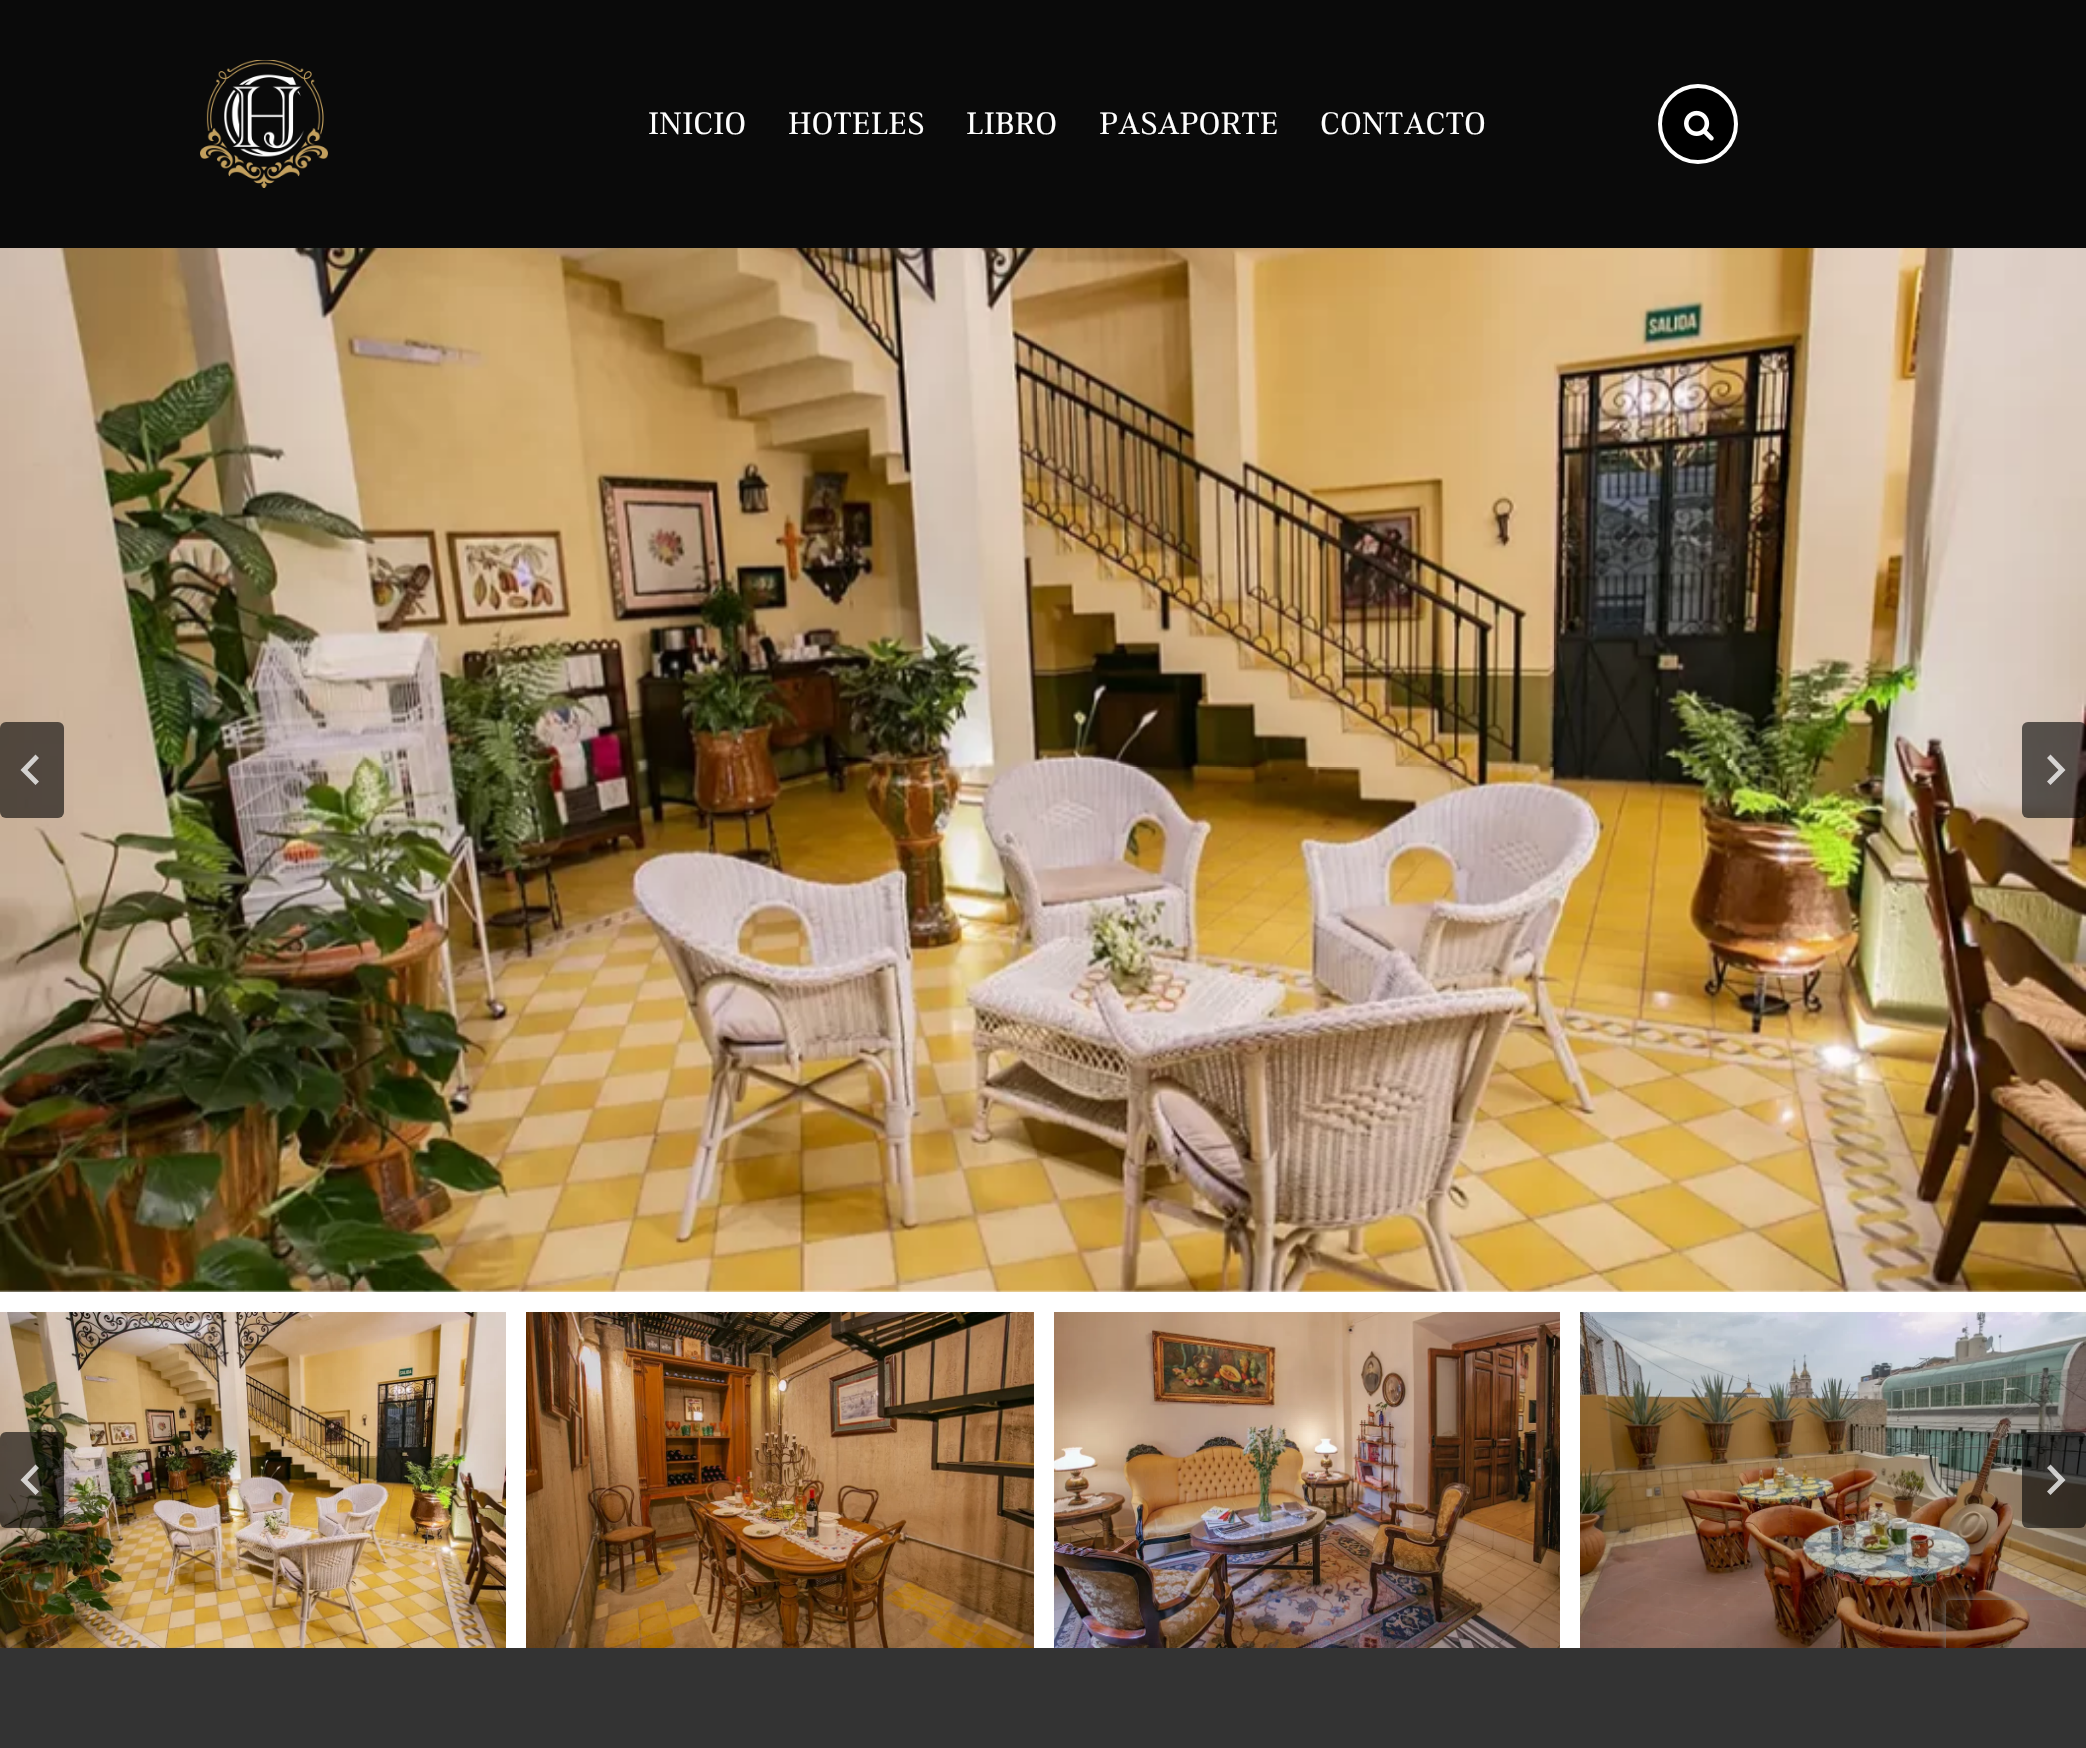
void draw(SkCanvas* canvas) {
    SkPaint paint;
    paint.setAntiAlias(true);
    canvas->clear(0xFFFFFFFF);
    paint.setColor(0xFF0A0A0A);
    canvas->drawRect(SkRect::MakeXYWH(0, 0, 2086, 248), paint);
    canvas->drawImageRect(SkImages::DeferredFromEncodedData(SkData::MakeFromFileName("img1.png")), SkRect::MakeXYWH(200, 60, 128, 128), SkSamplingOptions());
    SkFont font1(fontMgr->matchFamilyStyle("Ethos", SkFontStyle::Normal()), 32);
    font1.setSubpixel(true);
    paint.setColor(0xFFFFFFFF);
    canvas->drawString("INICIO", 648, 134, font1, paint);
    canvas->drawString("HOTELES", 788, 134, font1, paint);
    canvas->drawString("LIBRO", 966, 134, font1, paint);
    canvas->drawString("PASAPORTE", 1099, 134, font1, paint);
    canvas->drawString("CONTACTO", 1320, 134, font1, paint);
    paint.setColor(0xFF000000);
    canvas->drawCircle(1698, 124, 38, paint);
    paint.setStyle(SkPaint::kStroke_Style);
    paint.setStrokeWidth(4);
    paint.setColor(0xFFFFFFFF);
    canvas->drawCircle(1698, 124, 38, paint);
    canvas->drawImageRect(SkImages::DeferredFromEncodedData(SkData::MakeFromFileName("img2.png")), SkRect::MakeXYWH(1684, 110, 30, 31), SkSamplingOptions());
    canvas->drawImageRect(SkImages::DeferredFromEncodedData(SkData::MakeFromFileName("img3.png")), SkRect::MakeXYWH(0, 248, 2086, 1044), SkSamplingOptions());
    paint.setStyle(SkPaint::kFill_Style);
    paint.setColor(0x99000000);
    canvas->drawRoundRect(SkRect::MakeXYWH(0, 722, 64, 96), 6, 6, paint);
    paint.setColor(0xFFD3D1CF);
    canvas->drawPath(SkPathBuilder().moveTo(35.5f, 754.5f).lineTo(39, 758).lineTo(27.5f, 770).lineTo(39, 781.5f).lineTo(35.5f, 785).lineTo(20.5f, 770).close().detach(), paint);
    paint.setColor(0x99000000);
    canvas->drawRoundRect(SkRect::MakeXYWH(2022, 722, 64, 96), 6, 6, paint);
    paint.setColor(0xFFD5D3D2);
    canvas->drawPath(SkPathBuilder().moveTo(2050.5f, 754.5f).lineTo(2047, 758).lineTo(2058.5f, 770).lineTo(2047, 781.5f).lineTo(2050.5f, 785).lineTo(2065.5f, 770).close().detach(), paint);
    canvas->drawImageRect(SkImages::DeferredFromEncodedData(SkData::MakeFromFileName("img4.png")), SkRect::MakeXYWH(0, 1312, 506, 336), SkSamplingOptions());
    canvas->drawImageRect(SkImages::DeferredFromEncodedData(SkData::MakeFromFileName("img5.png")), SkRect::MakeXYWH(526, 1312, 508, 336), SkSamplingOptions());
    canvas->drawImageRect(SkImages::DeferredFromEncodedData(SkData::MakeFromFileName("img6.png")), SkRect::MakeXYWH(1054, 1312, 506, 336), SkSamplingOptions());
    canvas->drawImageRect(SkImages::DeferredFromEncodedData(SkData::MakeFromFileName("img7.png")), SkRect::MakeXYWH(1580, 1312, 506, 336), SkSamplingOptions());
    paint.setColor(0x99000000);
    canvas->drawRoundRect(SkRect::MakeXYWH(0, 1432, 64, 96), 6, 6, paint);
    paint.setColor(0xBFFFFFFF);
    canvas->drawPath(SkPathBuilder().moveTo(35.5f, 1464.5f).lineTo(39, 1468).lineTo(27.5f, 1480).lineTo(39, 1491.5f).lineTo(35.5f, 1495).lineTo(20.5f, 1480).close().detach(), paint);
    paint.setColor(0x99000000);
    canvas->drawRoundRect(SkRect::MakeXYWH(2022, 1432, 64, 96), 6, 6, paint);
    paint.setColor(0xBFFFFFFF);
    canvas->drawPath(SkPathBuilder().moveTo(2050.5f, 1464.5f).lineTo(2047, 1468).lineTo(2058.5f, 1480).lineTo(2047, 1491.5f).lineTo(2050.5f, 1495).lineTo(2065.5f, 1480).close().detach(), paint);
    canvas->save();
    canvas->clipPath(SkPathBuilder(SkPathFillType::kEvenOdd).moveTo(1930, 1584).lineTo(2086, 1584).lineTo(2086, 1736).lineTo(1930, 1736).close().moveTo(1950, 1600).lineTo(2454, 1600).cubicTo(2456, 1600, 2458, 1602, 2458, 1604).lineTo(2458, 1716).cubicTo(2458, 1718, 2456, 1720, 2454, 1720).lineTo(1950, 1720).cubicTo(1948, 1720, 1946, 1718, 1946, 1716).lineTo(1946, 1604).cubicTo(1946, 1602, 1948, 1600, 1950, 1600).close().detach(), true);
    paint.setColor(0xFF808080);
    paint.setMaskFilter(SkMaskFilter::MakeBlur(kNormal_SkBlurStyle, 5));
    canvas->drawRoundRect(SkRect::MakeXYWH(1946, 1600, 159, 120), 4, 4, paint);
    paint.setMaskFilter(nullptr);
    canvas->restore();
    paint.setColor(0xFF333333);
    canvas->drawRect(SkRect::MakeXYWH(0, 1648, 2086, 100), paint);
}
